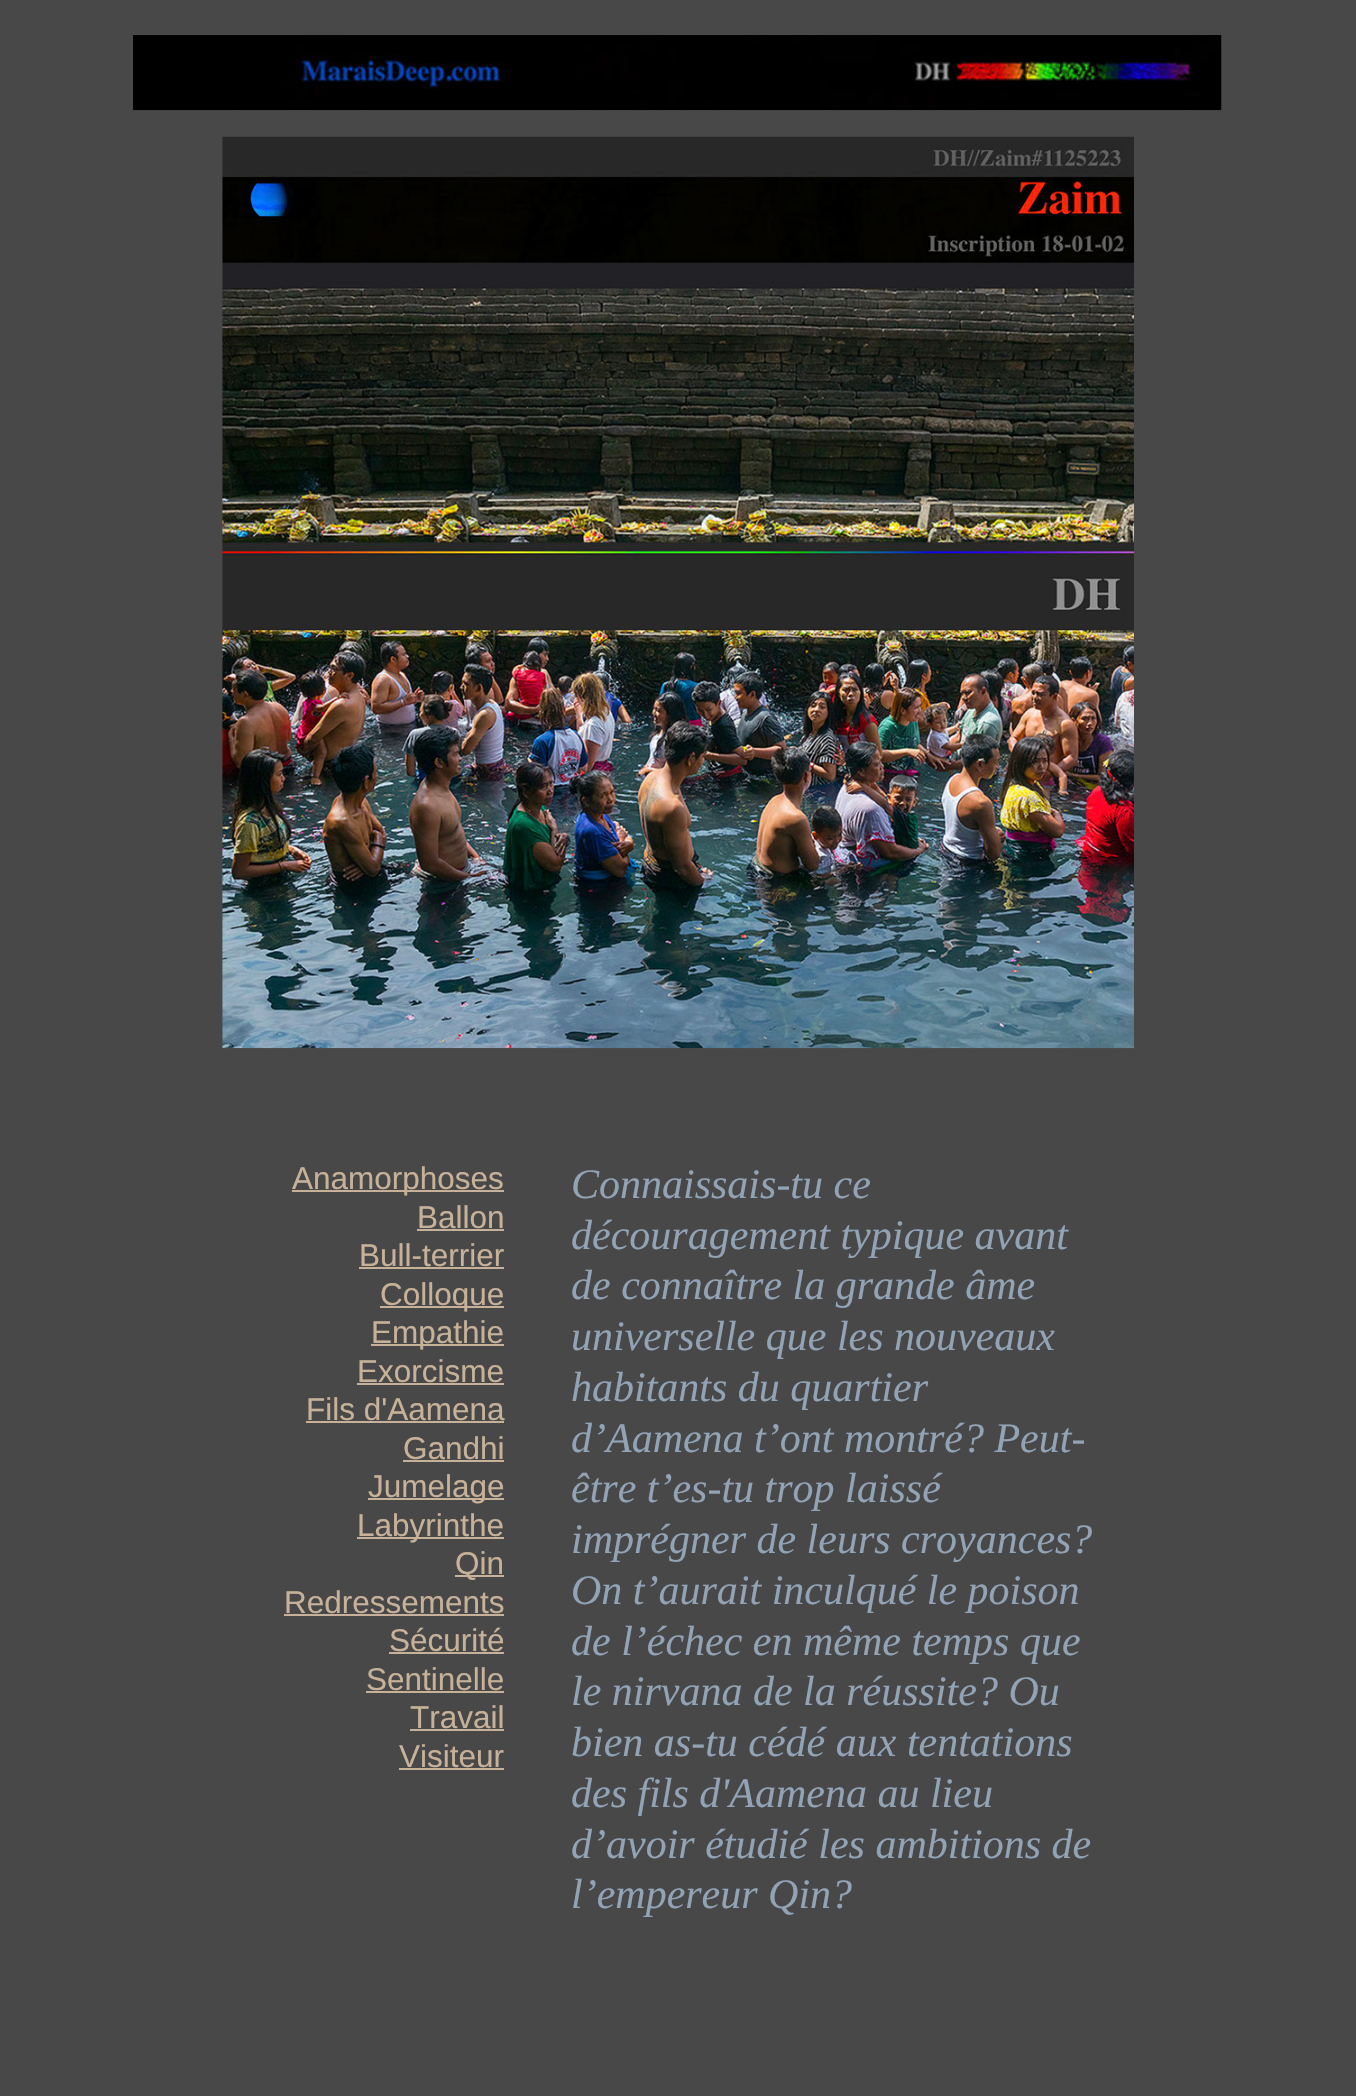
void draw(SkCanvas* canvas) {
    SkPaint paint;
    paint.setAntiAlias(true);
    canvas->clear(0xFF484848);
    canvas->drawImageRect(SkImages::DeferredFromEncodedData(SkData::MakeFromFileName("img1.png")), SkRect::MakeXYWH(133, 35, 1089, 76), SkSamplingOptions());
    canvas->drawImageRect(SkImages::DeferredFromEncodedData(SkData::MakeFromFileName("img2.png")), SkRect::MakeXYWH(222, 136, 912, 913), SkSamplingOptions());
    paint.setColor(0xFFC7B299);
    canvas->drawRect(SkRect::MakeXYWH(292, 1190, 212, 2), paint);
    SkFont font1(fontMgr->matchFamilyStyle("Liberation Sans", SkFontStyle::Normal()), 31.5f);
    font1.setSubpixel(true);
    canvas->drawString("Anamorphoses", 292, 1189, font1, paint);
    canvas->drawString("Ballon", 417, 1228, font1, paint);
    canvas->drawRect(SkRect::MakeXYWH(417, 1229, 87, 2), paint);
    canvas->drawString("Bull-terrier", 359, 1266, font1, paint);
    canvas->drawRect(SkRect::MakeXYWH(359, 1267, 145, 2), paint);
    canvas->drawRect(SkRect::MakeXYWH(380, 1306, 124, 2), paint);
    canvas->drawString("Colloque", 380, 1305, font1, paint);
    canvas->drawRect(SkRect::MakeXYWH(371, 1344, 133, 2), paint);
    canvas->drawString("Empathie", 371, 1343, font1, paint);
    canvas->drawString("Exorcisme", 357, 1382, font1, paint);
    canvas->drawRect(SkRect::MakeXYWH(357, 1383, 147, 2), paint);
    canvas->drawString("Fils d'Aamena", 306, 1420, font1, paint);
    canvas->drawRect(SkRect::MakeXYWH(306, 1421, 198, 2), paint);
    canvas->drawString("Gandhi", 403, 1459, font1, paint);
    canvas->drawRect(SkRect::MakeXYWH(403, 1460, 101, 2), paint);
    canvas->drawRect(SkRect::MakeXYWH(368, 1498, 136, 2), paint);
    canvas->drawString("Jumelage", 368, 1497, font1, paint);
    canvas->drawRect(SkRect::MakeXYWH(357, 1537, 147, 2), paint);
    canvas->drawString("Labyrinthe", 357, 1536, font1, paint);
    canvas->drawRect(SkRect::MakeXYWH(455, 1575, 49, 2), paint);
    canvas->drawString("Qin", 455, 1574, font1, paint);
    canvas->drawString("Redressements", 284, 1613, font1, paint);
    canvas->drawRect(SkRect::MakeXYWH(284, 1614, 220, 2), paint);
    canvas->drawString("Sécurité", 389, 1651, font1, paint);
    canvas->drawRect(SkRect::MakeXYWH(389, 1652, 115, 2), paint);
    canvas->drawString("Sentinelle", 366, 1690, font1, paint);
    canvas->drawRect(SkRect::MakeXYWH(366, 1691, 138, 2), paint);
    canvas->drawString("Travail", 410, 1728, font1, paint);
    canvas->drawRect(SkRect::MakeXYWH(410, 1729, 94, 2), paint);
    canvas->drawString("Visiteur", 399, 1767, font1, paint);
    canvas->drawRect(SkRect::MakeXYWH(399, 1768, 105, 2), paint);
    SkFont font2(fontMgr->matchFamilyStyle("Liberation Serif", SkFontStyle::Italic()), 42);
    font2.setSubpixel(true);
    paint.setColor(0xFF91A3B5);
    canvas->drawString("Connaissais-tu ce", 571, 1198, font2, paint);
    canvas->drawString("découragement typique avant", 571, 1249, font2, paint);
    canvas->drawString("de connaître la grande âme", 571, 1299, font2, paint);
    canvas->drawString("universelle que les nouveaux", 571, 1350, font2, paint);
    canvas->drawString("habitants du quartier", 571, 1401, font2, paint);
    canvas->drawString("d’Aamena t’ont montré? Peut-", 571, 1452, font2, paint);
    canvas->drawString("être t’es-tu trop laissé", 571, 1502, font2, paint);
    canvas->drawString("imprégner de leurs croyances?", 571, 1553, font2, paint);
    canvas->drawString("On t’aurait inculqué le poison", 571, 1604, font2, paint);
    canvas->drawString("de l’échec en même temps que", 571, 1655, font2, paint);
    canvas->drawString("le nirvana de la réussite? Ou", 571, 1705, font2, paint);
    canvas->drawString("bien as-tu cédé aux tentations", 571, 1756, font2, paint);
    canvas->drawString("des fils d'Aamena au lieu", 571, 1807, font2, paint);
    canvas->drawString("d’avoir étudié les ambitions de", 571, 1858, font2, paint);
    canvas->drawString("l’empereur Qin?", 571, 1908, font2, paint);
}
